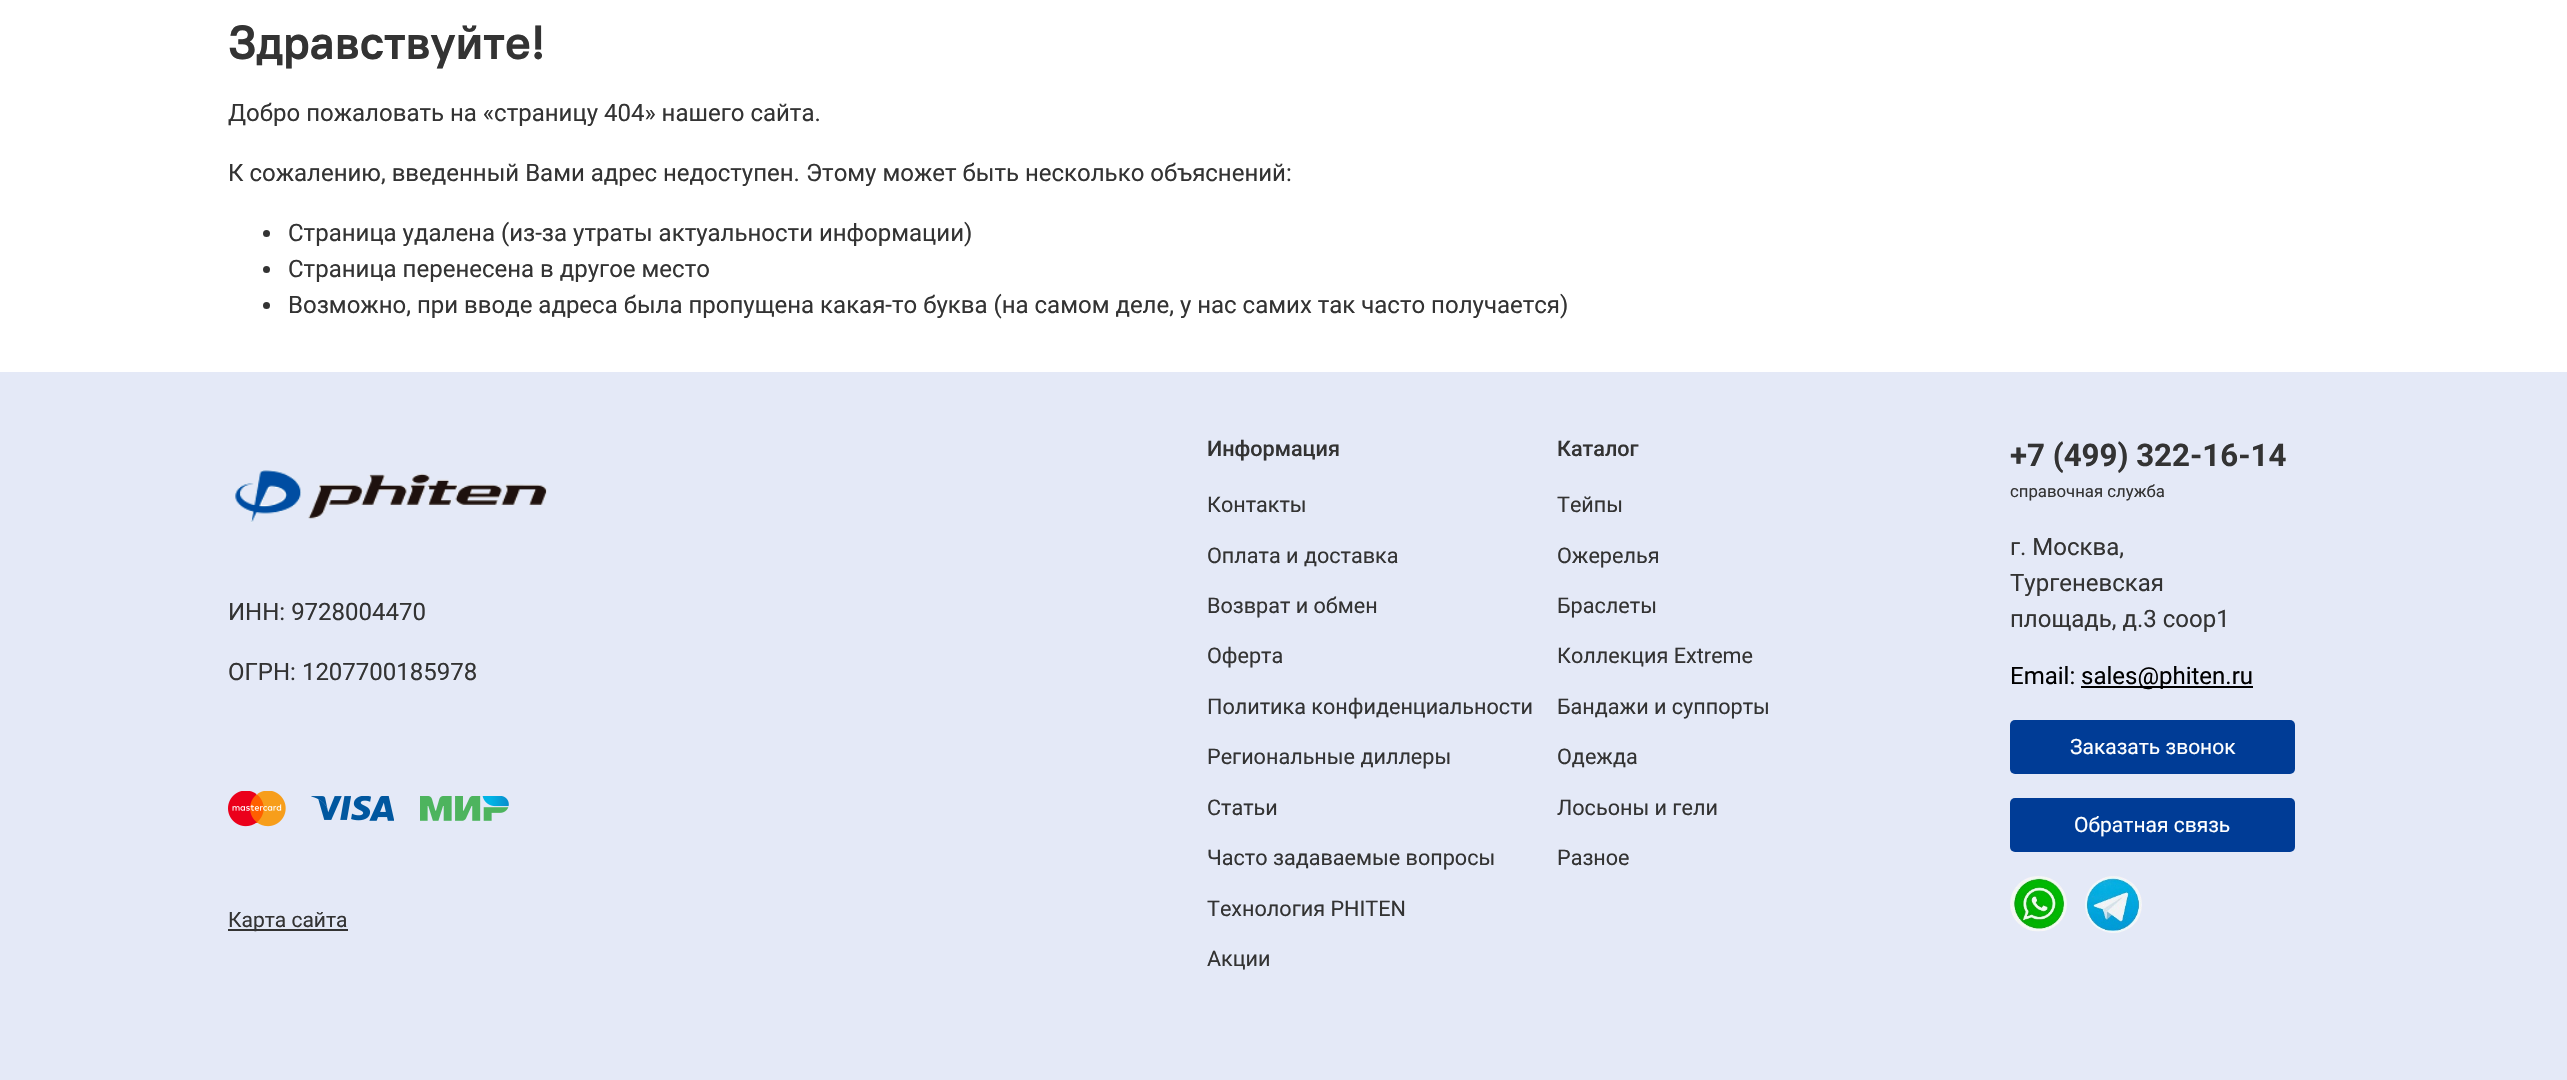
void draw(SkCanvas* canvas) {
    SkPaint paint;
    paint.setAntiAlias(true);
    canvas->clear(0xFFFFFFFF);
    SkFont font1(fontMgr->matchFamilyStyle("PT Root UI", SkFontStyle::Bold()), 48);
    font1.setSubpixel(true);
    paint.setColor(0xFF333333);
    canvas->drawString("Здравствуйте!", 228, 59, font1, paint);
    SkFont font2(fontMgr->matchFamilyStyle("Roboto", SkFontStyle::Normal()), 24);
    font2.setSubpixel(true);
    canvas->drawString("Добро пожаловать на «страницу 404» нашего сайта.", 228, 121, font2, paint);
    canvas->drawString("К сожалению, введенный Вами адрес недоступен. Этому может быть несколько объяснений:", 228, 181, font2, paint);
    canvas->drawCircle(266.5f, 233.5f, 3.5f, paint);
    canvas->drawString("Страница удалена (из-за утраты актуальности информации)", 288, 241, font2, paint);
    canvas->drawCircle(266.5f, 269.5f, 3.5f, paint);
    canvas->drawString("Страница перенесена в другое место", 288, 277, font2, paint);
    canvas->drawCircle(266.5f, 305.5f, 3.5f, paint);
    canvas->drawString("Возможно, при вводе адреса была пропущена какая-то буква (на самом деле, у нас самих так часто получается)", 288, 313, font2, paint);
    paint.setColor(0xFFE4E9F7);
    canvas->drawRect(SkRect::MakeXYWH(0, 372, 2567, 708), paint);
    canvas->drawImageRect(SkImages::DeferredFromEncodedData(SkData::MakeFromFileName("img1.png")), SkRect::MakeXYWH(235, 470, 312, 53), SkSamplingOptions());
    paint.setColor(0xFF333333);
    canvas->drawString("ИНН: 9728004470", 228, 620, font2, paint);
    canvas->drawString("ОГРН: 1207700185978", 228, 680, font2, paint);
    canvas->drawImageRect(SkImages::DeferredFromEncodedData(SkData::MakeFromFileName("img2.png")), SkRect::MakeXYWH(228, 791, 58, 36), SkSamplingOptions());
    canvas->drawImageRect(SkImages::DeferredFromEncodedData(SkData::MakeFromFileName("img3.png")), SkRect::MakeXYWH(311, 796, 83, 25), SkSamplingOptions());
    canvas->drawImageRect(SkImages::DeferredFromEncodedData(SkData::MakeFromFileName("img4.png")), SkRect::MakeXYWH(420, 796, 89, 25), SkSamplingOptions());
    canvas->drawRect(SkRect::MakeXYWH(228, 929, 120, 2), paint);
    SkFont font3(fontMgr->matchFamilyStyle("Roboto", SkFontStyle::Normal()), 21);
    font3.setSubpixel(true);
    canvas->drawString("Карта сайта", 228, 927, font3, paint);
    SkFont font4(fontMgr->matchFamilyStyle("Roboto", SkFontStyle(500, SkFontStyle::kNormal_Width, SkFontStyle::kUpright_Slant)), 21.6f);
    font4.setSubpixel(true);
    canvas->drawString("Информация", 1207, 456, font4, paint);
    SkFont font5(fontMgr->matchFamilyStyle("Roboto", SkFontStyle::Normal()), 21.6f);
    font5.setSubpixel(true);
    canvas->drawString("Контакты", 1207, 512, font5, paint);
    canvas->drawString("Оплата и доставка", 1207, 563, font5, paint);
    canvas->drawString("Возврат и обмен", 1207, 613, font5, paint);
    canvas->drawString("Оферта", 1207, 663, font5, paint);
    canvas->drawString("Политика конфиденциальности", 1207, 714, font5, paint);
    canvas->drawString("Региональные диллеры", 1207, 764, font5, paint);
    canvas->drawString("Статьи", 1207, 815, font5, paint);
    canvas->drawString("Часто задаваемые вопросы", 1207, 865, font5, paint);
    canvas->drawString("Технология PHITEN", 1207, 916, font5, paint);
    canvas->drawString("Акции", 1207, 966, font5, paint);
    canvas->drawString("Каталог", 1557, 456, font4, paint);
    canvas->drawString("Тейпы", 1557, 512, font5, paint);
    canvas->drawString("Ожерелья", 1557, 563, font5, paint);
    canvas->drawString("Браслеты", 1557, 613, font5, paint);
    canvas->drawString("Коллекция Extreme", 1557, 663, font5, paint);
    canvas->drawString("Бандажи и суппорты", 1557, 714, font5, paint);
    canvas->drawString("Одежда", 1557, 764, font5, paint);
    canvas->drawString("Лосьоны и гели", 1557, 815, font5, paint);
    canvas->drawString("Разное", 1557, 865, font5, paint);
    SkFont font6(fontMgr->matchFamilyStyle("Roboto", SkFontStyle::Bold()), 31.25f);
    font6.setSubpixel(true);
    canvas->drawString("+7 (499) 322-16-14", 2010, 466, font6, paint);
    SkFont font7(fontMgr->matchFamilyStyle("Roboto", SkFontStyle::Normal()), 16.75f);
    font7.setSubpixel(true);
    canvas->drawString("справочная служба", 2010, 497, font7, paint);
    canvas->drawString("г. Москва,", 2010, 555, font2, paint);
    canvas->drawString("Тургеневская", 2010, 591, font2, paint);
    canvas->drawString("площадь, д.3 соор1", 2010, 627, font2, paint);
    paint.setColor(0xFF000000);
    canvas->drawString("Email:", 2010, 684, font2, paint);
    canvas->drawRect(SkRect::MakeXYWH(2081, 686, 172, 2), paint);
    canvas->drawString("sales@phiten.ru", 2081, 684, font2, paint);
    paint.setColor(0xFF003C96);
    canvas->drawRoundRect(SkRect::MakeXYWH(2010, 720, 285, 54), 5, 5, paint);
    paint.setColor(0xFFFFFFFF);
    canvas->drawString("Заказать звонок", 2070, 754, font3, paint);
    paint.setColor(0xFF003C96);
    canvas->drawRoundRect(SkRect::MakeXYWH(2010, 798, 285, 54), 5, 5, paint);
    paint.setColor(0xFFFFFFFF);
    canvas->drawString("Обратная связь", 2074, 832, font3, paint);
    canvas->drawImageRect(SkImages::DeferredFromEncodedData(SkData::MakeFromFileName("img5.png")), SkRect::MakeXYWH(2010, 876, 57, 56), SkSamplingOptions());
    canvas->drawImageRect(SkImages::DeferredFromEncodedData(SkData::MakeFromFileName("img6.png")), SkRect::MakeXYWH(2085, 876, 57, 57), SkSamplingOptions());
}
